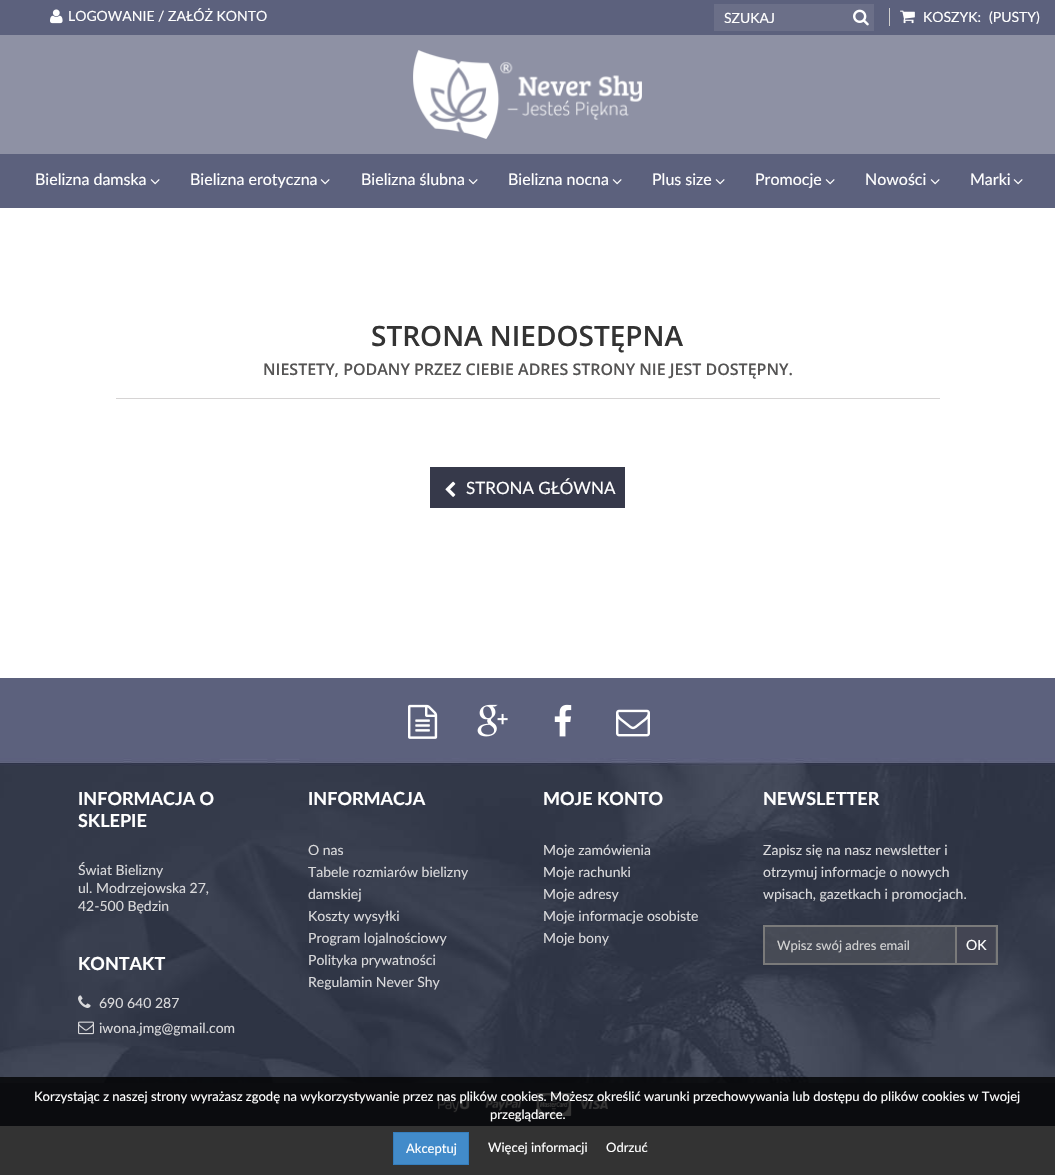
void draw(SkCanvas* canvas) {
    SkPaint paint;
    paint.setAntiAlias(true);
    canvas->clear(0xFFFFFFFF);
    paint.setColor(0xFF5C617D);
    canvas->drawRect(SkRect::MakeXYWH(0, 0, 1055, 35), paint);
    canvas->drawImageRect(SkImages::DeferredFromEncodedData(SkData::MakeFromFileName("img1.png")), SkRect::MakeXYWH(50, 9, 13, 15), SkSamplingOptions());
    SkFont font1(fontMgr->matchFamilyStyle("Lato", SkFontStyle::Normal()), 14);
    font1.setSubpixel(true);
    paint.setColor(0xFFFFFFFF);
    canvas->drawString("LOGOWANIE / ZAŁÓŻ KONTO", 68, 21, font1, paint);
    paint.setColor(0xFF6B6F88);
    canvas->drawRect(SkRect::MakeXYWH(714, 4, 160, 27), paint);
    paint.setColor(0xFFFFFFFF);
    canvas->drawString("SZUKAJ", 724, 23, font1, paint);
    canvas->drawImageRect(SkImages::DeferredFromEncodedData(SkData::MakeFromFileName("img2.png")), SkRect::MakeXYWH(853, 9, 16, 17), SkSamplingOptions());
    paint.setColor(0xFFD0CFCE);
    canvas->drawRect(SkRect::MakeXYWH(889, 8, 1, 18), paint);
    canvas->drawImageRect(SkImages::DeferredFromEncodedData(SkData::MakeFromFileName("img3.png")), SkRect::MakeXYWH(900, 10, 15, 14), SkSamplingOptions());
    paint.setColor(0xFFFFFFFF);
    canvas->drawString("KOSZYK:", 923, 22, font1, paint);
    canvas->drawString("(PUSTY)", 989, 22, font1, paint);
    paint.setColor(0xFF8E91A4);
    canvas->drawRect(SkRect::MakeXYWH(0, 35, 1055, 119), paint);
    canvas->drawImageRect(SkImages::DeferredFromEncodedData(SkData::MakeFromFileName("img4.png")), SkRect::MakeXYWH(413, 50, 229, 89), SkSamplingOptions());
    paint.setColor(0xFF5C617D);
    canvas->drawRect(SkRect::MakeXYWH(0, 154, 1055, 54), paint);
    SkFont font2(fontMgr->matchFamilyStyle("Lato", SkFontStyle::Normal()), 16);
    font2.setSubpixel(true);
    paint.setColor(0xFFFFFFFF);
    canvas->drawString("Bielizna damska", 35, 185, font2, paint);
    canvas->drawImageRect(SkImages::DeferredFromEncodedData(SkData::MakeFromFileName("img5.png")), SkRect::MakeXYWH(150, 179, 10, 6), SkSamplingOptions());
    canvas->drawString("Bielizna erotyczna", 190, 185, font2, paint);
    canvas->drawImageRect(SkImages::DeferredFromEncodedData(SkData::MakeFromFileName("img5.png")), SkRect::MakeXYWH(320, 179, 10, 6), SkSamplingOptions());
    canvas->drawString("Bielizna ślubna", 361, 185, font2, paint);
    canvas->drawImageRect(SkImages::DeferredFromEncodedData(SkData::MakeFromFileName("img5.png")), SkRect::MakeXYWH(468, 179, 10, 6), SkSamplingOptions());
    canvas->drawString("Bielizna nocna", 508, 185, font2, paint);
    canvas->drawImageRect(SkImages::DeferredFromEncodedData(SkData::MakeFromFileName("img5.png")), SkRect::MakeXYWH(612, 179, 10, 6), SkSamplingOptions());
    canvas->drawString("Plus size", 652, 185, font2, paint);
    canvas->drawImageRect(SkImages::DeferredFromEncodedData(SkData::MakeFromFileName("img5.png")), SkRect::MakeXYWH(715, 179, 10, 6), SkSamplingOptions());
    canvas->drawString("Promocje", 755, 185, font2, paint);
    canvas->drawImageRect(SkImages::DeferredFromEncodedData(SkData::MakeFromFileName("img5.png")), SkRect::MakeXYWH(825, 179, 10, 6), SkSamplingOptions());
    canvas->drawString("Nowości", 865, 185, font2, paint);
    canvas->drawImageRect(SkImages::DeferredFromEncodedData(SkData::MakeFromFileName("img5.png")), SkRect::MakeXYWH(930, 179, 10, 6), SkSamplingOptions());
    canvas->drawString("Marki", 970, 185, font2, paint);
    canvas->drawImageRect(SkImages::DeferredFromEncodedData(SkData::MakeFromFileName("img5.png")), SkRect::MakeXYWH(1013, 179, 10, 6), SkSamplingOptions());
    SkFont font3(fontMgr->matchFamilyStyle("Open Sans", SkFontStyle(600, SkFontStyle::kNormal_Width, SkFontStyle::kUpright_Slant)), 28);
    font3.setSubpixel(true);
    paint.setColor(0xFF333333);
    canvas->drawString("STRONA NIEDOSTĘPNA", 371, 346, font3, paint);
    paint.setColor(0xFFD6D4D4);
    canvas->drawRect(SkRect::MakeXYWH(116, 398, 824, 1), paint);
    SkFont font4(fontMgr->matchFamilyStyle("Open Sans", SkFontStyle(600, SkFontStyle::kNormal_Width, SkFontStyle::kUpright_Slant)), 16);
    font4.setSubpixel(true);
    paint.setColor(0xFF555454);
    canvas->drawString("NIESTETY, PODANY PRZEZ CIEBIE ADRES STRONY NIE JEST DOSTĘPNY.", 263, 375, font4, paint);
    paint.setColor(0xFF36394A);
    canvas->drawRect(SkRect::MakeXYWH(430, 467, 195, 41), paint);
    canvas->drawImageRect(SkImages::DeferredFromEncodedData(SkData::MakeFromFileName("img6.png")), SkRect::MakeXYWH(445, 481, 11, 16), SkSamplingOptions());
    SkFont font5(fontMgr->matchFamilyStyle("Lato", SkFontStyle::Normal()), 17);
    font5.setSubpixel(true);
    paint.setColor(0xFFFFFFFF);
    canvas->drawString("STRONA GŁÓWNA", 466, 494, font5, paint);
    paint.setColor(0xFF5C617D);
    canvas->drawRect(SkRect::MakeXYWH(0, 678, 1055, 80), paint);
    canvas->drawImageRect(SkImages::DeferredFromEncodedData(SkData::MakeFromFileName("img7.png")), SkRect::MakeXYWH(0, 758, 1055, 325), SkSamplingOptions());
    canvas->drawImageRect(SkImages::DeferredFromEncodedData(SkData::MakeFromFileName("img8.png")), SkRect::MakeXYWH(408, 704, 30, 35), SkSamplingOptions());
    canvas->drawImageRect(SkImages::DeferredFromEncodedData(SkData::MakeFromFileName("img9.png")), SkRect::MakeXYWH(477, 704, 31, 33), SkSamplingOptions());
    canvas->drawImageRect(SkImages::DeferredFromEncodedData(SkData::MakeFromFileName("img10.png")), SkRect::MakeXYWH(554, 704, 18, 33), SkSamplingOptions());
    canvas->drawImageRect(SkImages::DeferredFromEncodedData(SkData::MakeFromFileName("img11.png")), SkRect::MakeXYWH(616, 709, 34, 28), SkSamplingOptions());
    SkFont font6(fontMgr->matchFamilyStyle("Lato", SkFontStyle::Bold()), 18);
    font6.setSubpixel(true);
    paint.setColor(0xFFFFFFFF);
    canvas->drawString("INFORMACJA O", 78, 805, font6, paint);
    canvas->drawString("SKLEPIE", 78, 827, font6, paint);
    paint.setColor(0xFFD9D9DB);
    canvas->drawString("Świat Bielizny", 78, 875, font1, paint);
    canvas->drawString("ul. Modrzejowska 27,", 78, 893, font1, paint);
    canvas->drawString("42-500 Będzin", 78, 911, font1, paint);
    paint.setColor(0xFFFFFFFF);
    canvas->drawString("KONTAKT", 78, 970, font6, paint);
    canvas->drawImageRect(SkImages::DeferredFromEncodedData(SkData::MakeFromFileName("img12.png")), SkRect::MakeXYWH(78, 995, 13, 13), SkSamplingOptions());
    paint.setColor(0xFFD9D9DB);
    canvas->drawString("690 640 287", 99, 1008, font1, paint);
    canvas->drawImageRect(SkImages::DeferredFromEncodedData(SkData::MakeFromFileName("img13.png")), SkRect::MakeXYWH(78, 1021, 16, 14), SkSamplingOptions());
    canvas->drawString("iwona.jmg@gmail.com", 99, 1033, font1, paint);
    paint.setColor(0xFFFFFFFF);
    canvas->drawString("INFORMACJA", 308, 805, font6, paint);
    paint.setColor(0xFFD9D9DB);
    canvas->drawString("O nas", 308, 855, font1, paint);
    canvas->drawString("Tabele rozmiarów bielizny", 308, 877, font1, paint);
    canvas->drawString("damskiej", 308, 899, font1, paint);
    canvas->drawString("Koszty wysyłki", 308, 921, font1, paint);
    canvas->drawString("Program lojalnościowy", 308, 943, font1, paint);
    canvas->drawString("Polityka prywatności", 308, 965, font1, paint);
    canvas->drawString("Regulamin Never Shy", 308, 987, font1, paint);
    paint.setColor(0xFFFFFFFF);
    canvas->drawString("MOJE KONTO", 543, 805, font6, paint);
    paint.setColor(0xFFD9D9DB);
    canvas->drawString("Moje zamówienia", 543, 855, font1, paint);
    canvas->drawString("Moje rachunki", 543, 877, font1, paint);
    canvas->drawString("Moje adresy", 543, 899, font1, paint);
    canvas->drawString("Moje informacje osobiste", 543, 921, font1, paint);
    canvas->drawString("Moje bony", 543, 943, font1, paint);
    paint.setColor(0xFFFFFFFF);
    canvas->drawString("NEWSLETTER", 763, 805, font6, paint);
    paint.setColor(0xFFD9D9DB);
    canvas->drawString("Zapisz się na nasz newsletter i", 763, 855, font1, paint);
    canvas->drawString("otrzymuj informacje o nowych", 763, 877, font1, paint);
    canvas->drawString("wpisach, gazetkach i promocjach.", 763, 899, font1, paint);
    paint.setColor(0x52797979);
    canvas->drawRect(SkRect::MakeXYWH(764, 926, 233, 38), paint);
    paint.setStyle(SkPaint::kStroke_Style);
    paint.setStrokeWidth(2);
    paint.setColor(0xFF7A7A7A);
    canvas->drawRect(SkRect::MakeXYWH(764, 926, 233, 38), paint);
    SkFont font7(fontMgr->matchFamilyStyle("Lato", SkFontStyle::Normal()), 13);
    font7.setSubpixel(true);
    paint.setStyle(SkPaint::kFill_Style);
    paint.setColor(0xFFD2D2D2);
    canvas->drawString("Wpisz swój adres email", 777, 950, font7, paint);
    paint.setColor(0xFF434553);
    canvas->drawRect(SkRect::MakeXYWH(957, 927, 38, 36), paint);
    paint.setColor(0xFF7A7A7A);
    canvas->drawRect(SkRect::MakeXYWH(955, 927, 2, 36), paint);
    paint.setColor(0xFFFFFFFF);
    canvas->drawString("OK", 966, 950, font1, paint);
    paint.setColor(0xFF36394A);
    canvas->drawRect(SkRect::MakeXYWH(0, 1083, 1055, 43), paint);
    canvas->drawImageRect(SkImages::DeferredFromEncodedData(SkData::MakeFromFileName("img14.png")), SkRect::MakeXYWH(438, 1093, 170, 23), SkSamplingOptions());
    paint.setColor(0xCC000000);
    canvas->drawRect(SkRect::MakeXYWH(0, 1077, 1055, 98), paint);
    paint.setColor(0xFFFFFFFF);
    canvas->drawString("Korzystając z naszej strony wyrażasz zgodę na wykorzystywanie przez nas plików cookies. Możesz określić warunki przechowywania lub dostępu do plików cookies w Twojej", 34, 1101, font7, paint);
    canvas->drawString("przeglądarce.", 490, 1119, font7, paint);
    paint.setColor(0xFF428BCA);
    canvas->drawRect(SkRect::MakeXYWH(393.5f, 1132.5f, 75, 32), paint);
    paint.setStyle(SkPaint::kStroke_Style);
    paint.setStrokeWidth(1);
    paint.setColor(0xFF357EBD);
    canvas->drawRect(SkRect::MakeXYWH(393.5f, 1132.5f, 75, 32), paint);
    paint.setStyle(SkPaint::kFill_Style);
    paint.setColor(0xFFFFFFFF);
    canvas->drawString("Akceptuj", 406, 1153, font7, paint);
    canvas->drawString("Więcej informacji", 488, 1152, font7, paint);
    canvas->drawString("Odrzuć", 606, 1152, font7, paint);
}
